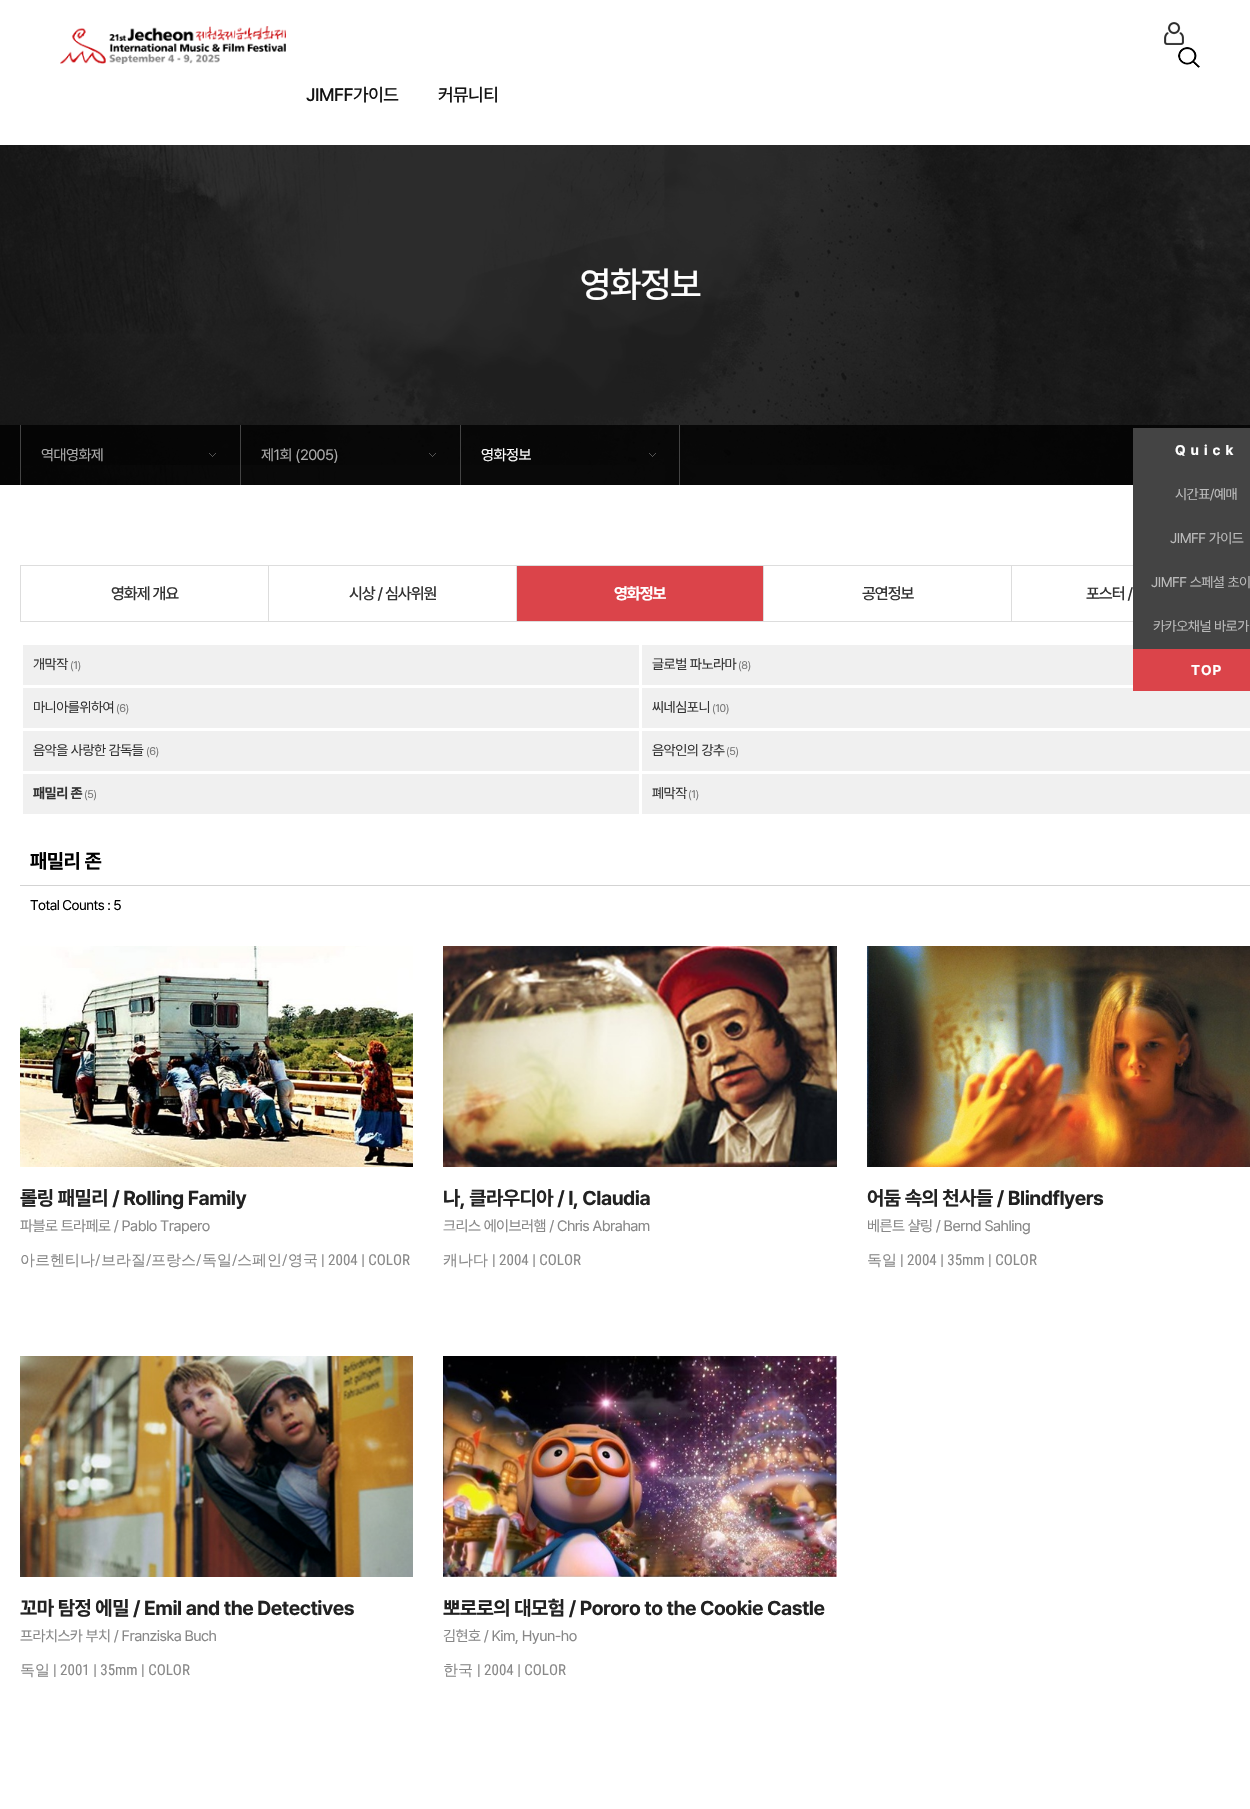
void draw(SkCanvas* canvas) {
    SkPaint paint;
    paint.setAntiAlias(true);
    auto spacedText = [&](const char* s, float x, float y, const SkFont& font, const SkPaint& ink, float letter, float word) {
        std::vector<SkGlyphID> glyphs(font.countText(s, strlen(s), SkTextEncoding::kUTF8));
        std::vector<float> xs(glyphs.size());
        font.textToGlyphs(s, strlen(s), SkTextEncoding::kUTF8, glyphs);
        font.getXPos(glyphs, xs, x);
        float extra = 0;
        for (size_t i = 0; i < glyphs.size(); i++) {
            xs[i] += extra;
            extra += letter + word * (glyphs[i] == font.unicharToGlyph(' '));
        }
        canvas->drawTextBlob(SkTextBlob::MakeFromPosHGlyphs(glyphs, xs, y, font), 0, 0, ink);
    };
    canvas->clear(0xFFFFFFFF);
    canvas->drawImageRect(SkImages::DeferredFromEncodedData(SkData::MakeFromFileName("img1.png")), SkRect::MakeXYWH(60, 26, 226, 38), SkSamplingOptions());
    canvas->drawImageRect(SkImages::DeferredFromEncodedData(SkData::MakeFromFileName("img2.png")), SkRect::MakeXYWH(1164, 22, 20, 23), SkSamplingOptions());
    canvas->drawImageRect(SkImages::DeferredFromEncodedData(SkData::MakeFromFileName("img3.png")), SkRect::MakeXYWH(1178, 47, 22, 21), SkSamplingOptions());
    SkFont font1(fontMgr->matchFamilyStyle("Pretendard", SkFontStyle(500, SkFontStyle::kNormal_Width, SkFontStyle::kUpright_Slant)), 18);
    font1.setSubpixel(true);
    paint.setColor(0xFF131313);
    spacedText("JIMFF가이드", 306, 101, font1, paint, -0.5f, 0);
    spacedText("커뮤니티", 438, 101, font1, paint, -0.5f, 0);
    canvas->drawImageRect(SkImages::DeferredFromEncodedData(SkData::MakeFromFileName("img4.png")), SkRect::MakeXYWH(0, 145, 1250, 340), SkSamplingOptions());
    SkFont font2(fontMgr->matchFamilyStyle("Pretendard", SkFontStyle(500, SkFontStyle::kNormal_Width, SkFontStyle::kUpright_Slant)), 36);
    font2.setSubpixel(true);
    paint.setColor(0xFFFFFFFF);
    spacedText("영화정보", 580, 297, font2, paint, -1, 0);
    paint.setColor(0xCC000000);
    canvas->drawRect(SkRect::MakeXYWH(0, 425, 1250, 60), paint);
    paint.setColor(0xFF444444);
    canvas->drawRect(SkRect::MakeXYWH(20, 425, 1, 60), paint);
    canvas->drawImageRect(SkImages::DeferredFromEncodedData(SkData::MakeFromFileName("img5.png")), SkRect::MakeXYWH(209, 453, 7, 4), SkSamplingOptions());
    SkFont font3(fontMgr->matchFamilyStyle("Pretendard", SkFontStyle::Normal()), 15);
    font3.setSubpixel(true);
    paint.setColor(0xFFAAAAAA);
    spacedText("역대영화제", 41, 460, font3, paint, -0.5f, 0);
    paint.setColor(0xFF444444);
    canvas->drawRect(SkRect::MakeXYWH(240, 425, 1, 60), paint);
    canvas->drawImageRect(SkImages::DeferredFromEncodedData(SkData::MakeFromFileName("img6.png")), SkRect::MakeXYWH(429, 453, 7, 4), SkSamplingOptions());
    paint.setColor(0xFFAAAAAA);
    spacedText("제1회 (2005)", 261, 460, font3, paint, -0.5f, 0);
    paint.setColor(0xFF444444);
    canvas->drawRect(SkRect::MakeXYWH(679, 425, 1, 60), paint);
    canvas->drawRect(SkRect::MakeXYWH(460, 425, 1, 60), paint);
    canvas->drawImageRect(SkImages::DeferredFromEncodedData(SkData::MakeFromFileName("img7.png")), SkRect::MakeXYWH(649, 453, 7, 4), SkSamplingOptions());
    paint.setColor(0xFFFFFFFF);
    spacedText("영화정보", 481, 460, font3, paint, -0.5f, 0);
    paint.setStyle(SkPaint::kStroke_Style);
    paint.setStrokeWidth(1);
    paint.setColor(0xFFDDDDDD);
    canvas->drawRect(SkRect::MakeXYWH(20.5f, 565.5f, 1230, 56), paint);
    SkFont font4(fontMgr->matchFamilyStyle("Pretendard", SkFontStyle(500, SkFontStyle::kNormal_Width, SkFontStyle::kUpright_Slant)), 16);
    font4.setSubpixel(true);
    paint.setStyle(SkPaint::kFill_Style);
    paint.setColor(0xFF333333);
    spacedText("영화제 개요", 111, 599, font4, paint, -1, 0);
    paint.setColor(0xFFDDDDDD);
    canvas->drawRect(SkRect::MakeXYWH(268, 566, 1, 55), paint);
    paint.setColor(0xFF333333);
    spacedText("시상 / 심사위원", 349, 599, font4, paint, -1, 0);
    paint.setColor(0xFFDDDDDD);
    canvas->drawRect(SkRect::MakeXYWH(516, 566, 1, 55), paint);
    paint.setColor(0xFFDB444A);
    canvas->drawRect(SkRect::MakeXYWH(517, 566, 246, 55), paint);
    SkFont font5(fontMgr->matchFamilyStyle("Pretendard", SkFontStyle::Bold()), 16);
    font5.setSubpixel(true);
    paint.setColor(0xFFFFFFFF);
    spacedText("영화정보", 614, 599, font5, paint, -1, 0);
    paint.setColor(0xFFDDDDDD);
    canvas->drawRect(SkRect::MakeXYWH(763, 566, 1, 55), paint);
    paint.setColor(0xFF333333);
    spacedText("공연정보", 862, 599, font4, paint, -1, 0);
    paint.setColor(0xFFDDDDDD);
    canvas->drawRect(SkRect::MakeXYWH(1011, 566, 1, 55), paint);
    paint.setColor(0xFF333333);
    spacedText("포스터 /", 1086, 599, font4, paint, -1, 0);
    paint.setColor(0xFFF0F0F0);
    canvas->drawRect(SkRect::MakeXYWH(23, 645, 616, 40), paint);
    SkFont font6(fontMgr->matchFamilyStyle("Pretendard", SkFontStyle::Normal()), 14);
    font6.setSubpixel(true);
    paint.setColor(0xFF333333);
    spacedText("개막작", 33, 669, font6, paint, -0.5f, 0);
    SkFont font7(fontMgr->matchFamilyStyle("Pretendard", SkFontStyle::Normal()), 11);
    font7.setSubpixel(true);
    paint.setColor(0xFF777777);
    spacedText("(1)", 70, 669, font7, paint, -0.5f, 0);
    paint.setColor(0xFFF0F0F0);
    canvas->drawRect(SkRect::MakeXYWH(642, 645, 491, 40), paint);
    paint.setColor(0xFF333333);
    spacedText("글로벌 파노라마", 652, 669, font6, paint, -0.5f, 0);
    paint.setColor(0xFF777777);
    spacedText("(8)", 738, 669, font7, paint, -0.5f, 0);
    paint.setColor(0xFFF0F0F0);
    canvas->drawRect(SkRect::MakeXYWH(23, 688, 616, 40), paint);
    paint.setColor(0xFF333333);
    spacedText("마니아를위하여", 33, 712, font6, paint, -0.5f, 0);
    paint.setColor(0xFF777777);
    spacedText("(6)", 116, 712, font7, paint, -0.5f, 0);
    paint.setColor(0xFFF0F0F0);
    canvas->drawRect(SkRect::MakeXYWH(642, 688, 608, 40), paint);
    paint.setColor(0xFF333333);
    spacedText("씨네심포니", 652, 712, font6, paint, -0.5f, 0);
    paint.setColor(0xFF777777);
    spacedText("(10)", 712, 712, font7, paint, -0.5f, 0);
    paint.setColor(0xFFF0F0F0);
    canvas->drawRect(SkRect::MakeXYWH(23, 731, 616, 40), paint);
    paint.setColor(0xFF333333);
    spacedText("음악을 사랑한 감독들", 33, 755, font6, paint, -0.5f, 0);
    paint.setColor(0xFF777777);
    spacedText("(6)", 146, 755, font7, paint, -0.5f, 0);
    paint.setColor(0xFFF0F0F0);
    canvas->drawRect(SkRect::MakeXYWH(642, 731, 608, 40), paint);
    paint.setColor(0xFF333333);
    spacedText("음악인의 강추", 652, 755, font6, paint, -0.5f, 0);
    paint.setColor(0xFF777777);
    spacedText("(5)", 726, 755, font7, paint, -0.5f, 0);
    paint.setColor(0xFFF0F0F0);
    canvas->drawRect(SkRect::MakeXYWH(23, 774, 616, 40), paint);
    SkFont font8(fontMgr->matchFamilyStyle("Pretendard", SkFontStyle::Bold()), 14);
    font8.setSubpixel(true);
    paint.setColor(0xFF333333);
    spacedText("패밀리 존", 33, 798, font8, paint, -0.5f, 0);
    paint.setColor(0xFF777777);
    spacedText("(5)", 84, 798, font7, paint, -0.5f, 0);
    paint.setColor(0xFFF0F0F0);
    canvas->drawRect(SkRect::MakeXYWH(642, 774, 608, 40), paint);
    paint.setColor(0xFF333333);
    spacedText("폐막작", 652, 798, font6, paint, -0.5f, 0);
    paint.setColor(0xFF777777);
    spacedText("(1)", 688, 798, font7, paint, -0.5f, 0);
    paint.setColor(0xFFD3D3D3);
    canvas->drawRect(SkRect::MakeXYWH(20, 885, 1230, 1), paint);
    SkFont font9(fontMgr->matchFamilyStyle("Pretendard", SkFontStyle::Bold()), 20);
    font9.setSubpixel(true);
    paint.setColor(0xFF000000);
    spacedText("패밀리 존", 30, 868, font9, paint, -0.5f, 0);
    spacedText("Total Counts : 5", 30, 910, font6, paint, -0.5f, 0);
    canvas->drawImageRect(SkImages::DeferredFromEncodedData(SkData::MakeFromFileName("img8.png")), SkRect::MakeXYWH(20, 946, 393, 221), SkSamplingOptions());
    paint.setColor(0xFF222222);
    spacedText("롤링 패밀리 / Rolling Family", 20, 1205, font9, paint, -0.5f, 0);
    paint.setColor(0xFF888888);
    spacedText("파블로 트라페로 / Pablo Trapero", 20, 1231, font3, paint, -0.5f, 0);
    SkFont font10(fontMgr->matchFamilyStyle("WenQuanYi Zen Hei", SkFontStyle(500, SkFontStyle::kNormal_Width, SkFontStyle::kUpright_Slant)), 15);
    font10.setSubpixel(true);
    canvas->drawString("아르헨티나", 20, 1265, font10, paint);
    SkFont font11(fontMgr->matchFamilyStyle("Roboto Condensed", SkFontStyle::Normal()), 15);
    font11.setSubpixel(true);
    canvas->drawString("/", 95, 1265, font11, paint);
    canvas->drawString("브라질", 101, 1265, font10, paint);
    canvas->drawString("/", 146, 1265, font11, paint);
    canvas->drawString("프랑스", 151, 1265, font10, paint);
    canvas->drawString("/", 196, 1265, font11, paint);
    canvas->drawString("독일", 202, 1265, font10, paint);
    canvas->drawString("/", 232, 1265, font11, paint);
    canvas->drawString("스페인", 237, 1265, font10, paint);
    canvas->drawString("/", 282, 1265, font11, paint);
    canvas->drawString("영국", 288, 1265, font10, paint);
    canvas->drawString("| 2004 | COLOR", 321, 1265, font11, paint);
    canvas->drawImageRect(SkImages::DeferredFromEncodedData(SkData::MakeFromFileName("img9.png")), SkRect::MakeXYWH(443, 946, 394, 221), SkSamplingOptions());
    paint.setColor(0xFF222222);
    spacedText("나, 클라우디아 / I, Claudia", 443, 1205, font9, paint, -0.5f, 0);
    paint.setColor(0xFF888888);
    spacedText("크리스 에이브러햄 / Chris Abraham", 443, 1231, font3, paint, -0.5f, 0);
    canvas->drawString("캐나다", 443, 1265, font10, paint);
    canvas->drawString("| 2004 | COLOR", 492, 1265, font11, paint);
    canvas->drawImageRect(SkImages::DeferredFromEncodedData(SkData::MakeFromFileName("img10.png")), SkRect::MakeXYWH(867, 946, 383, 221), SkSamplingOptions());
    paint.setColor(0xFF222222);
    spacedText("어둠 속의 천사들 / Blindflyers", 867, 1205, font9, paint, -0.5f, 0);
    paint.setColor(0xFF888888);
    spacedText("베른트 샬링 / Bernd Sahling", 867, 1231, font3, paint, -0.5f, 0);
    canvas->drawString("독일", 867, 1265, font10, paint);
    canvas->drawString("| 2004 | 35mm | COLOR", 900, 1265, font11, paint);
    canvas->drawImageRect(SkImages::DeferredFromEncodedData(SkData::MakeFromFileName("img11.png")), SkRect::MakeXYWH(20, 1356, 393, 221), SkSamplingOptions());
    paint.setColor(0xFF222222);
    spacedText("꼬마 탐정 에밀 / Emil and the Detectives", 20, 1615, font9, paint, -0.5f, 0);
    paint.setColor(0xFF888888);
    spacedText("프라치스카 부치 / Franziska Buch", 20, 1641, font3, paint, -0.5f, 0);
    canvas->drawString("독일", 20, 1675, font10, paint);
    canvas->drawString("| 2001 | 35mm | COLOR", 53, 1675, font11, paint);
    canvas->drawImageRect(SkImages::DeferredFromEncodedData(SkData::MakeFromFileName("img12.png")), SkRect::MakeXYWH(443, 1356, 394, 221), SkSamplingOptions());
    paint.setColor(0xFF222222);
    spacedText("뽀로로의 대모험 / Pororo to the Cookie Castle", 443, 1615, font9, paint, -0.5f, 0);
    paint.setColor(0xFF888888);
    spacedText("김현호 / Kim, Hyun-ho", 443, 1641, font3, paint, -0.5f, 0);
    canvas->drawString("한국", 443, 1675, font10, paint);
    canvas->drawString("| 2004 | COLOR", 477, 1675, font11, paint);
    paint.setColor(0xFF444444);
    canvas->drawRect(SkRect::MakeXYWH(1133, 428, 117, 221), paint);
    paint.setColor(0xFFFFFFFF);
    spacedText("Quick", 1175, 455, font8, paint, 5, 0);
    paint.setColor(0xFFBBBBBB);
    spacedText("시간표/예매", 1175, 499, font6, paint, -0.5f, 0);
    spacedText("JIMFF 가이드", 1170, 543, font6, paint, -0.5f, 0);
    spacedText("JIMFF 스페셜 초이", 1151, 587, font6, paint, -0.5f, 0);
    spacedText("카카오채널 바로가", 1153, 631, font6, paint, -0.5f, 0);
    paint.setColor(0xFFDB444A);
    canvas->drawRect(SkRect::MakeXYWH(1133, 649, 117, 42), paint);
    paint.setColor(0xFFFFFFFF);
    spacedText("TOP", 1191, 675, font8, paint, 1, 0);
}
